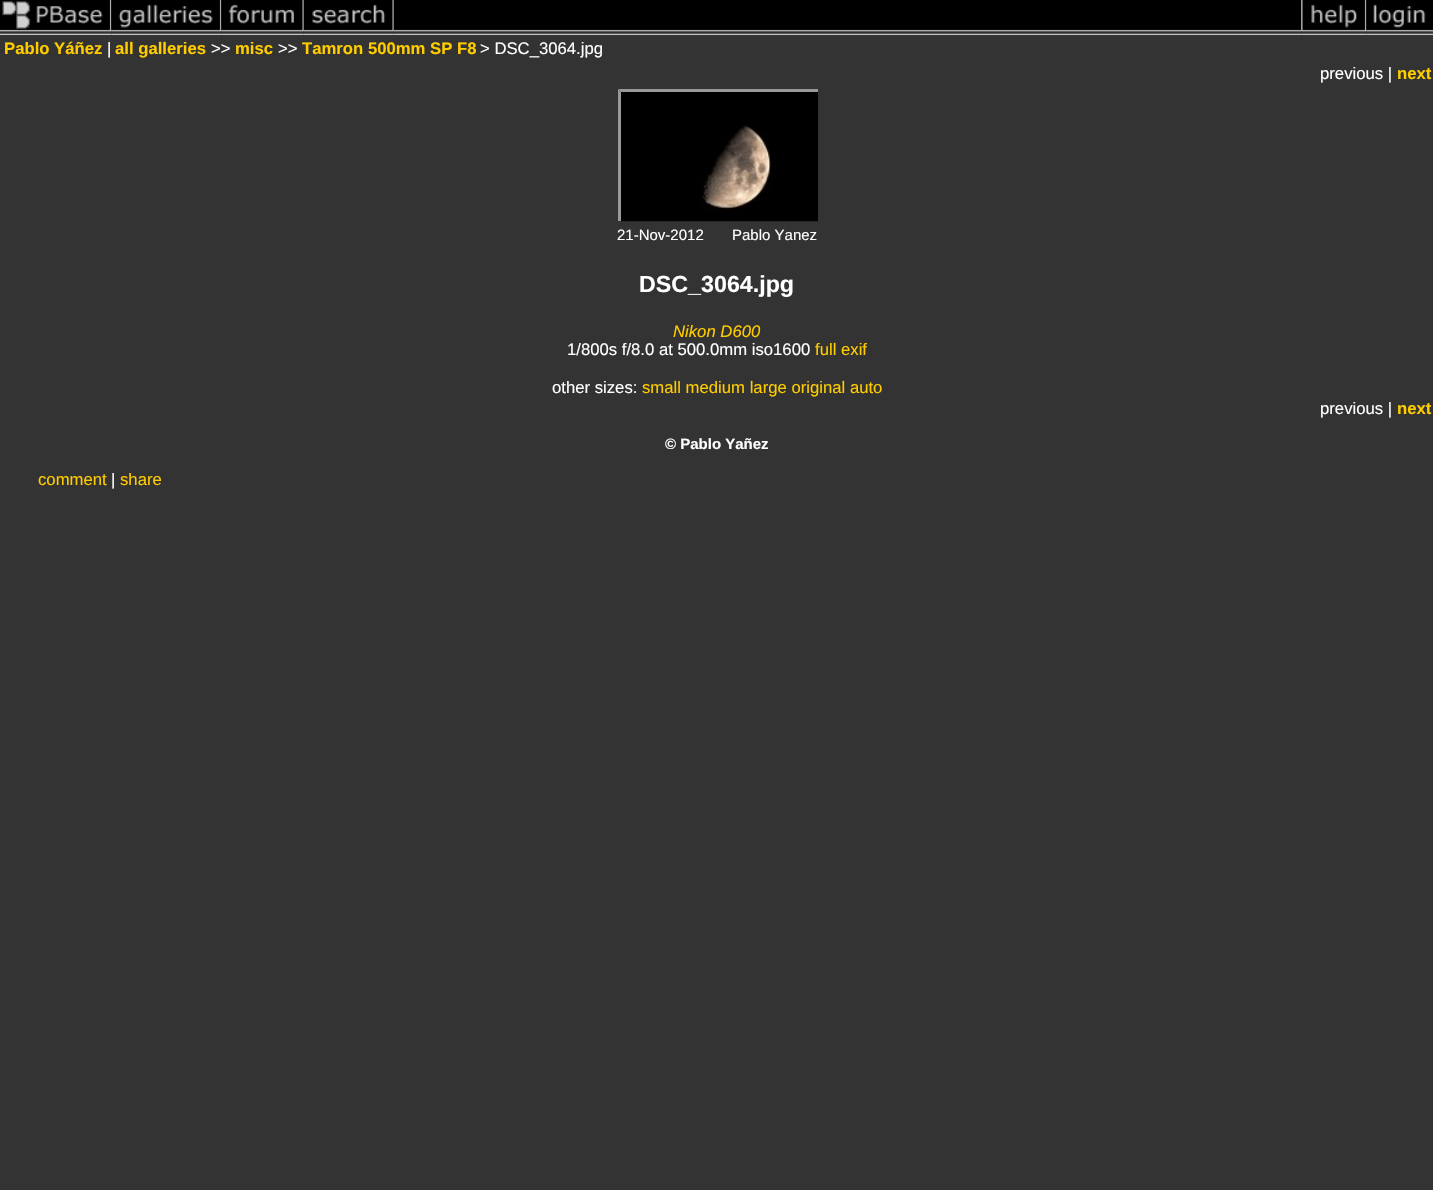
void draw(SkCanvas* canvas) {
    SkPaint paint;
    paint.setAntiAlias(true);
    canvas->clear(0xFF333333);
    canvas->drawImageRect(SkImages::DeferredFromEncodedData(SkData::MakeFromFileName("img1.png")), SkRect::MakeXYWH(0, 0, 112, 35), SkSamplingOptions());
    canvas->drawImageRect(SkImages::DeferredFromEncodedData(SkData::MakeFromFileName("img2.png")), SkRect::MakeXYWH(111, 0, 111, 35), SkSamplingOptions());
    canvas->drawImageRect(SkImages::DeferredFromEncodedData(SkData::MakeFromFileName("img3.png")), SkRect::MakeXYWH(221, 0, 83, 35), SkSamplingOptions());
    canvas->drawImageRect(SkImages::DeferredFromEncodedData(SkData::MakeFromFileName("img4.png")), SkRect::MakeXYWH(303, 0, 91, 35), SkSamplingOptions());
    canvas->drawImageRect(SkImages::DeferredFromEncodedData(SkData::MakeFromFileName("img5.png")), SkRect::MakeXYWH(393, 0, 909, 35), SkSamplingOptions());
    canvas->drawImageRect(SkImages::DeferredFromEncodedData(SkData::MakeFromFileName("img6.png")), SkRect::MakeXYWH(1301, 0, 66, 35), SkSamplingOptions());
    canvas->drawImageRect(SkImages::DeferredFromEncodedData(SkData::MakeFromFileName("img7.png")), SkRect::MakeXYWH(1366, 0, 67, 35), SkSamplingOptions());
    SkFont font1(fontMgr->matchFamilyStyle("Liberation Sans", SkFontStyle::Bold()), 16.7f);
    font1.setSubpixel(true);
    paint.setColor(0xFFFFCC00);
    canvas->drawString("Pablo Yáñez", 4, 54, font1, paint);
    SkFont font2(fontMgr->matchFamilyStyle("Liberation Sans", SkFontStyle::Normal()), 16.7f);
    font2.setSubpixel(true);
    paint.setColor(0xFFFFFFFF);
    canvas->drawString("|", 107, 54, font2, paint);
    paint.setColor(0xFFFFCC00);
    canvas->drawString("all galleries", 115, 54, font1, paint);
    paint.setColor(0xFFFFFFFF);
    canvas->drawString(">>", 211, 54, font2, paint);
    paint.setColor(0xFFFFCC00);
    canvas->drawString("misc", 235, 54, font1, paint);
    paint.setColor(0xFFFFFFFF);
    canvas->drawString(">>", 278, 54, font2, paint);
    paint.setColor(0xFFFFCC00);
    canvas->drawString("Tamron 500mm SP F8", 302, 54, font1, paint);
    paint.setColor(0xFFFFFFFF);
    canvas->drawString("> DSC_3064.jpg", 480, 54, font2, paint);
    canvas->drawString("previous |", 1320, 79, font2, paint);
    paint.setColor(0xFFFFCC00);
    canvas->drawString("next", 1397, 79, font1, paint);
    paint.setColor(0xFF000000);
    canvas->drawRect(SkRect::MakeXYWH(618, 89, 200, 132), paint);
    canvas->save();
    canvas->clipRect(SkRect::MakeXYWH(618, 89, 200, 132));
    paint.setColor(0xFF999999);
    canvas->drawPath(SkPathBuilder().moveTo(618, 89).lineTo(822, 89).lineTo(819, 92).lineTo(621, 92).close().detach(), paint);
    canvas->drawPath(SkPathBuilder().moveTo(618, 228).lineTo(618, 89).lineTo(621, 92).lineTo(621, 224).close().detach(), paint);
    canvas->restore();
    canvas->drawImageRect(SkImages::DeferredFromEncodedData(SkData::MakeFromFileName("img8.png")), SkRect::MakeXYWH(621, 123, 197, 99), SkSamplingOptions());
    SkFont font3(fontMgr->matchFamilyStyle("Liberation Sans", SkFontStyle::Normal()), 15);
    font3.setSubpixel(true);
    paint.setColor(0xFFFFFFFF);
    canvas->drawString("21-Nov-2012", 617, 240, font3, paint);
    canvas->drawString("Pablo Yanez", 732, 240, font3, paint);
    SkFont font4(fontMgr->matchFamilyStyle("Liberation Sans", SkFontStyle::Bold()), 23.25f);
    font4.setSubpixel(true);
    canvas->drawString("DSC_3064.jpg", 639, 292, font4, paint);
    SkFont font5(fontMgr->matchFamilyStyle("Liberation Sans", SkFontStyle::Italic()), 16.7f);
    font5.setSubpixel(true);
    paint.setColor(0xFFFFCC00);
    canvas->drawString("Nikon D600", 673, 337, font5, paint);
    paint.setColor(0xFFFFFFFF);
    canvas->drawString("1/800s f/8.0 at 500.0mm iso1600", 567, 355, font2, paint);
    paint.setColor(0xFFFFCC00);
    canvas->drawString("full exif", 815, 355, font2, paint);
    paint.setColor(0xFFFFFFFF);
    canvas->drawString("other sizes:", 552, 393, font2, paint);
    paint.setColor(0xFFFFCC00);
    canvas->drawString("small medium large original auto", 642, 393, font2, paint);
    paint.setColor(0xFFFFFFFF);
    canvas->drawString("previous |", 1320, 414, font2, paint);
    paint.setColor(0xFFFFCC00);
    canvas->drawString("next", 1397, 414, font1, paint);
    SkFont font6(fontMgr->matchFamilyStyle("Liberation Sans", SkFontStyle::Bold()), 15);
    font6.setSubpixel(true);
    paint.setColor(0xFFFFFFFF);
    canvas->drawString("© Pablo Yañez", 665, 449, font6, paint);
    paint.setColor(0xFFFFCC00);
    canvas->drawString("comment", 38, 485, font2, paint);
    paint.setColor(0xFFFFFFFF);
    canvas->drawString("|", 111, 485, font2, paint);
    paint.setColor(0xFFFFCC00);
    canvas->drawString("share", 120, 485, font2, paint);
}
